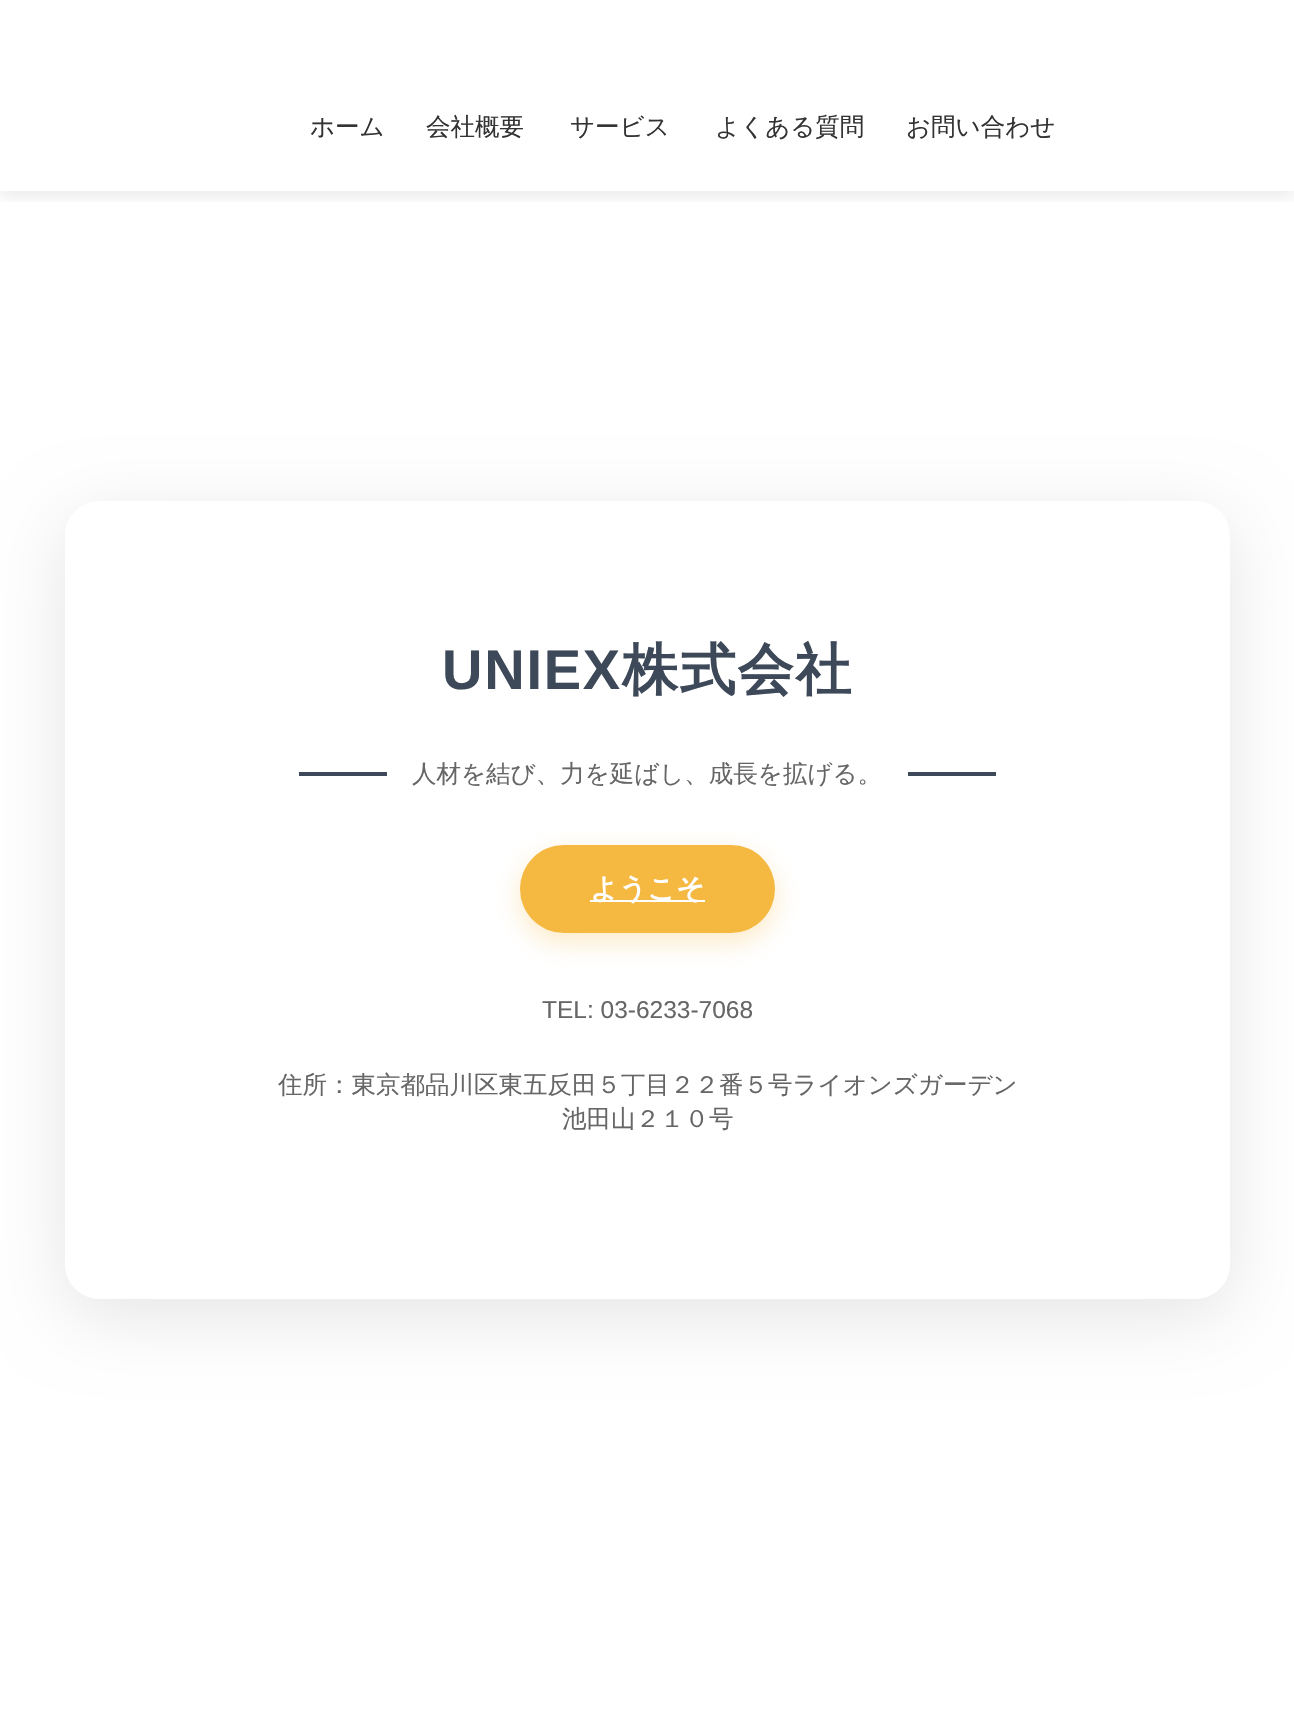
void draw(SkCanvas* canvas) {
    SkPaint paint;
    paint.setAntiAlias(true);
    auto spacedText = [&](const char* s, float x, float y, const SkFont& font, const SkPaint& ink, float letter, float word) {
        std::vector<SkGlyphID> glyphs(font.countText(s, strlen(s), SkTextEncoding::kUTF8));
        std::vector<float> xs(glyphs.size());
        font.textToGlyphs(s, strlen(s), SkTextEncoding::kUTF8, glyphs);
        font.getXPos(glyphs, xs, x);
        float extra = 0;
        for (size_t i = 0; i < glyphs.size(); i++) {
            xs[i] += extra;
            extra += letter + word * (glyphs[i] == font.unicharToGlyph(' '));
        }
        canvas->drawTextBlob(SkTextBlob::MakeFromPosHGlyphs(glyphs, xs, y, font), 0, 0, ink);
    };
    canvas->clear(0xFFFFFFFF);
    canvas->save();
    canvas->clipRect(SkRect::MakeXYWH(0, 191, 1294, 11));
    paint.setColor(0x1A000000);
    paint.setMaskFilter(SkMaskFilter::MakeBlur(kNormal_SkBlurStyle, 9));
    canvas->drawRect(SkRect::MakeXYWH(0, 4, 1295, 190), paint);
    paint.setMaskFilter(nullptr);
    canvas->restore();
    paint.setColor(0xF2FFFFFF);
    canvas->drawRect(SkRect::MakeXYWH(4, 190, 1287, 1), paint);
    SkFont font1(fontMgr->matchFamilyStyle("WenQuanYi Zen Hei", SkFontStyle(500, SkFontStyle::kNormal_Width, SkFontStyle::kUpright_Slant)), 24.5f);
    font1.setSubpixel(true);
    paint.setColor(0xFF333333);
    canvas->drawString("ホーム", 310, 135, font1, paint);
    canvas->drawString("会社概要", 426, 135, font1, paint);
    canvas->drawString("サービス", 570, 135, font1, paint);
    canvas->drawString("よくある質問", 715, 135, font1, paint);
    canvas->drawString("お問い合わせ", 906, 135, font1, paint);
    canvas->save();
    canvas->clipPath(SkPathBuilder(SkPathFillType::kEvenOdd).moveTo(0, 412).lineTo(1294, 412).lineTo(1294, 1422).lineTo(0, 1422).close().moveTo(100, 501).lineTo(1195, 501).cubicTo(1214.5f, 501, 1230, 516.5f, 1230, 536).lineTo(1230, 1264).cubicTo(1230, 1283.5f, 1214.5f, 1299, 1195, 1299).lineTo(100, 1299).cubicTo(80.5f, 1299, 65, 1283.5f, 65, 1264).lineTo(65, 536).cubicTo(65, 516.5f, 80.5f, 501, 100, 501).close().detach(), true);
    paint.setColor(0x1A000000);
    paint.setMaskFilter(SkMaskFilter::MakeBlur(kNormal_SkBlurStyle, 35));
    canvas->drawRoundRect(SkRect::MakeXYWH(65, 518, 1165, 798), 35, 35, paint);
    paint.setMaskFilter(nullptr);
    canvas->restore();
    paint.setColor(0x80FFFFFF);
    canvas->drawRoundRect(SkRect::MakeXYWH(65, 501, 1165, 798), 35, 35, paint);
    SkFont font2(fontMgr->matchFamilyStyle("Liberation Sans", SkFontStyle::Bold()), 56);
    font2.setSubpixel(true);
    paint.setColor(0xFF3D4958);
    spacedText("UNIEX", 442, 689, font2, paint, 1.75f, 0);
    SkFont font3(fontMgr->matchFamilyStyle("WenQuanYi Zen Hei", SkFontStyle::Bold()), 56);
    font3.setSubpixel(true);
    spacedText("株式会社", 622, 689, font3, paint, 1.75f, 0);
    canvas->drawRect(SkRect::MakeXYWH(299, 772, 88, 4), paint);
    paint.setColor(0xFF666666);
    canvas->drawString("人材を結び、力を延ばし、成長を拡げる。", 412, 782, font1, paint);
    paint.setColor(0xFF3D4958);
    canvas->drawRect(SkRect::MakeXYWH(908, 772, 88, 4), paint);
    paint.setColor(0x4DF5B841);
    paint.setMaskFilter(SkMaskFilter::MakeBlur(kNormal_SkBlurStyle, 13));
    canvas->drawRoundRect(SkRect::MakeXYWH(520, 854, 255, 88), 44, 44, paint);
    paint.setMaskFilter(nullptr);
    paint.setColor(0xFFF5B841);
    canvas->drawRoundRect(SkRect::MakeXYWH(520, 845, 255, 88), 44, 44, paint);
    paint.setColor(0xFFFFFFFF);
    canvas->drawRect(SkRect::MakeXYWH(590, 900, 115, 2), paint);
    SkFont font4(fontMgr->matchFamilyStyle("WenQuanYi Zen Hei", SkFontStyle::Bold()), 28);
    font4.setSubpixel(true);
    canvas->drawString("ようこそ", 590, 898, font4, paint);
    SkFont font5(fontMgr->matchFamilyStyle("Liberation Sans", SkFontStyle::Normal()), 24.5f);
    font5.setSubpixel(true);
    paint.setColor(0xFF666666);
    canvas->drawString("TEL: 03-6233-7068", 542, 1018, font5, paint);
    canvas->drawString("住所：東京都品川区東五反田５丁目２２番５号ライオンズガーデン", 278, 1093, font1, paint);
    canvas->drawString("池田山２１０号", 562, 1127, font1, paint);
}
